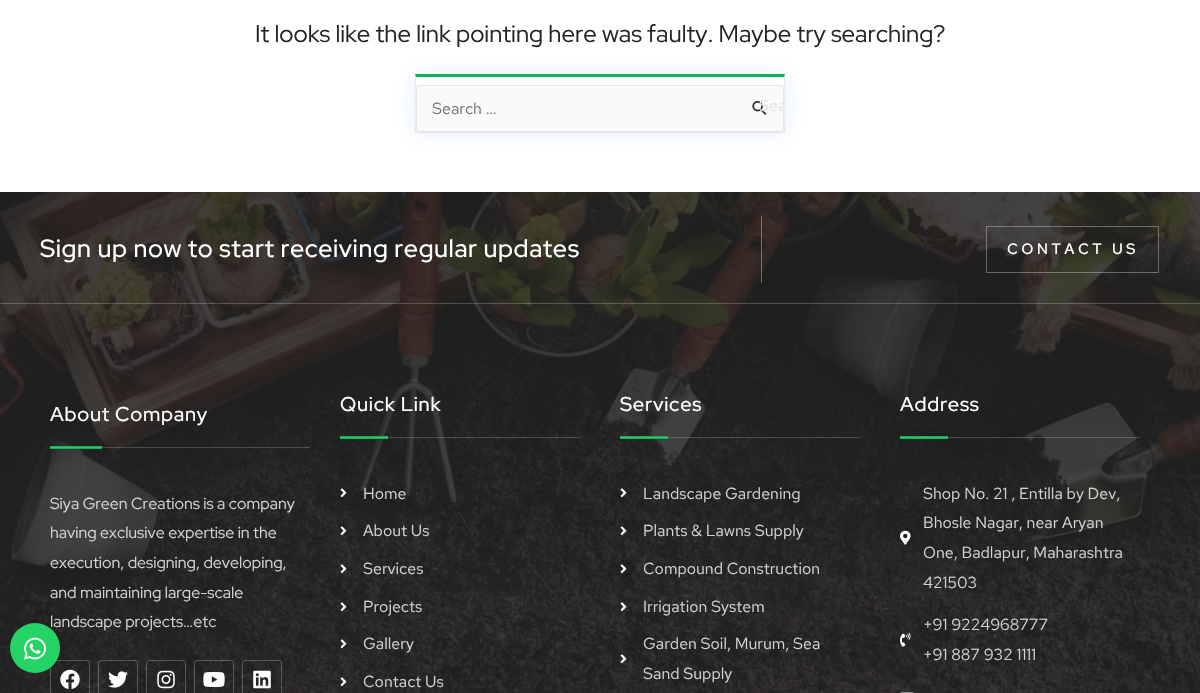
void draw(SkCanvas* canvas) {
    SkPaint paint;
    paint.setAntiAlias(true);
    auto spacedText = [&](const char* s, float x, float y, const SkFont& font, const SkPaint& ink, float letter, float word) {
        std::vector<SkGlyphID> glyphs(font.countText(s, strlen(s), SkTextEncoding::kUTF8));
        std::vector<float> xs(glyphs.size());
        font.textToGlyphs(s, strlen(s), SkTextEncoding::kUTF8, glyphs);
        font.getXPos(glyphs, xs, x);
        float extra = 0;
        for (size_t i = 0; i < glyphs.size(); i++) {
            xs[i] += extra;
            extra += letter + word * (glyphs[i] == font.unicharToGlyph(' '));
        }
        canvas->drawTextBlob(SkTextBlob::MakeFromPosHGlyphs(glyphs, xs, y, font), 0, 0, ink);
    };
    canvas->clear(0xFFFFFFFF);
    canvas->save();
    canvas->clipPath(SkPathBuilder(SkPathFillType::kEvenOdd).moveTo(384, 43).lineTo(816, 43).lineTo(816, 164).lineTo(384, 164).close().moveTo(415, 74).lineTo(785, 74).lineTo(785, 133).lineTo(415, 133).close().detach(), true);
    paint.setColor(0x264285F4);
    paint.setMaskFilter(SkMaskFilter::MakeBlur(kNormal_SkBlurStyle, 10));
    canvas->drawRect(SkRect::MakeXYWH(415, 74, 370, 59), paint);
    paint.setMaskFilter(nullptr);
    canvas->restore();
    SkFont font1(fontMgr->matchFamilyStyle("Red Hat Display", SkFontStyle::Normal()), 24);
    font1.setSubpixel(true);
    paint.setColor(0xFF252525);
    canvas->drawString("It looks like the link pointing here was faulty. Maybe try searching?", 255, 42, font1, paint);
    paint.setColor(0xFF0BB355);
    canvas->drawPath(SkPathBuilder().moveTo(415, 74).lineTo(785, 74).lineTo(784, 77).lineTo(416, 77).close().detach(), paint);
    paint.setColor(0x1A252525);
    canvas->drawPath(SkPathBuilder().moveTo(785, 74).lineTo(785, 133).lineTo(784, 132).lineTo(784, 77).close().detach(), paint);
    canvas->drawPath(SkPathBuilder().moveTo(785, 133).lineTo(415, 133).lineTo(416, 132).lineTo(784, 132).close().detach(), paint);
    canvas->drawPath(SkPathBuilder().moveTo(415, 133).lineTo(415, 74).lineTo(416, 77).lineTo(416, 132).close().detach(), paint);
    paint.setColor(0xFFFAFAFA);
    canvas->drawRoundRect(SkRect::MakeXYWH(416.5f, 85.5f, 367, 46), 1.5f, 1.5f, paint);
    paint.setStyle(SkPaint::kStroke_Style);
    paint.setStrokeWidth(1);
    paint.setColor(0xFFE5E5E5);
    canvas->drawRoundRect(SkRect::MakeXYWH(416.5f, 85.5f, 367, 46), 1.5f, 1.5f, paint);
    canvas->drawImageRect(SkImages::DeferredFromEncodedData(SkData::MakeFromFileName("img1.png")), SkRect::MakeXYWH(752, 101, 15, 14), SkSamplingOptions());
    canvas->save();
    canvas->clipPath(SkPathBuilder().moveTo(741, 85).lineTo(782, 85).cubicTo(783, 85, 784, 86, 784, 87).lineTo(784, 125).cubicTo(784, 126, 783, 127, 782, 127).lineTo(741, 127).cubicTo(740, 127, 739, 126, 739, 125).lineTo(739, 87).cubicTo(739, 86, 740, 85, 741, 85).close().detach(), true);
    SkFont font2(fontMgr->matchFamilyStyle("Red Hat Text", SkFontStyle::Normal()), 16);
    font2.setSubpixel(true);
    paint.setStyle(SkPaint::kFill_Style);
    paint.setColor(0xFFE4E4E4);
    canvas->drawString("Sea", 759, 111, font2, paint);
    canvas->restore();
    paint.setColor(0xFF757575);
    canvas->drawString("Search …", 432, 114, font2, paint);
    canvas->drawImageRect(SkImages::DeferredFromEncodedData(SkData::MakeFromFileName("img2.png")), SkRect::MakeXYWH(0, 192, 1200, 501), SkSamplingOptions());
    paint.setColor(0x36FFFFFF);
    canvas->drawRect(SkRect::MakeXYWH(0, 303, 1200, 1), paint);
    paint.setColor(0x59FFFFFF);
    canvas->drawRect(SkRect::MakeXYWH(761, 216, 1, 67), paint);
    SkFont font3(fontMgr->matchFamilyStyle("Red Hat Display", SkFontStyle(500, SkFontStyle::kNormal_Width, SkFontStyle::kUpright_Slant)), 25);
    font3.setSubpixel(true);
    paint.setColor(0xFFFFFFFF);
    spacedText("Sign up now to start receiving regular updates", 40, 257, font3, paint, 0.6f, 0);
    paint.setStyle(SkPaint::kStroke_Style);
    paint.setColor(0x52FFFFFF);
    canvas->drawRect(SkRect::MakeXYWH(986.5f, 226.5f, 172, 46), paint);
    SkFont font4(fontMgr->matchFamilyStyle("Red Hat Text", SkFontStyle(500, SkFontStyle::kNormal_Width, SkFontStyle::kUpright_Slant)), 15);
    font4.setSubpixel(true);
    paint.setStyle(SkPaint::kFill_Style);
    paint.setColor(0xFFFFFFFF);
    spacedText("CONTACT US", 1007, 254, font4, paint, 3.4f, 0);
    SkFont font5(fontMgr->matchFamilyStyle("Red Hat Display", SkFontStyle(500, SkFontStyle::kNormal_Width, SkFontStyle::kUpright_Slant)), 20);
    font5.setSubpixel(true);
    spacedText("About Company", 50, 421, font5, paint, 0.75f, 0);
    paint.setColor(0xFF0BB355);
    canvas->drawRect(SkRect::MakeXYWH(50, 446, 52, 3), paint);
    paint.setColor(0x30FFFFFF);
    canvas->drawRect(SkRect::MakeXYWH(50, 447, 260, 1), paint);
    SkFont font6(fontMgr->matchFamilyStyle("Red Hat Display", SkFontStyle::Normal()), 16);
    font6.setSubpixel(true);
    paint.setColor(0xFFD2D2D2);
    canvas->drawString("Siya Green Creations is a company", 50, 509, font6, paint);
    canvas->drawString("having exclusive expertise in the", 50, 538, font6, paint);
    canvas->drawString("execution, designing, developing,", 50, 568, font6, paint);
    canvas->drawString("and maintaining large-scale", 50, 598, font6, paint);
    canvas->drawString("landscape projects…etc", 50, 627, font6, paint);
    paint.setStyle(SkPaint::kStroke_Style);
    paint.setColor(0x3BFFFFFF);
    canvas->drawRoundRect(SkRect::MakeXYWH(50.5f, 660.5f, 39, 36), 2.5f, 2.5f, paint);
    paint.setStyle(SkPaint::kFill_Style);
    paint.setColor(0xFF25D366);
    canvas->drawCircle(35, 648, 25, paint);
    canvas->drawImageRect(SkImages::DeferredFromEncodedData(SkData::MakeFromFileName("img3.png")), SkRect::MakeXYWH(24, 637, 22, 23), SkSamplingOptions());
    canvas->drawImageRect(SkImages::DeferredFromEncodedData(SkData::MakeFromFileName("img4.png")), SkRect::MakeXYWH(60, 669, 20, 20), SkSamplingOptions());
    paint.setStyle(SkPaint::kStroke_Style);
    paint.setColor(0x3BFFFFFF);
    canvas->drawRoundRect(SkRect::MakeXYWH(98.5f, 660.5f, 39, 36), 2.5f, 2.5f, paint);
    canvas->drawImageRect(SkImages::DeferredFromEncodedData(SkData::MakeFromFileName("img5.png")), SkRect::MakeXYWH(108, 671, 20, 17), SkSamplingOptions());
    canvas->drawRoundRect(SkRect::MakeXYWH(146.5f, 660.5f, 39, 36), 2.5f, 2.5f, paint);
    canvas->drawImageRect(SkImages::DeferredFromEncodedData(SkData::MakeFromFileName("img6.png")), SkRect::MakeXYWH(157, 670, 18, 19), SkSamplingOptions());
    canvas->drawRoundRect(SkRect::MakeXYWH(194.5f, 660.5f, 39, 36), 2.5f, 2.5f, paint);
    canvas->drawImageRect(SkImages::DeferredFromEncodedData(SkData::MakeFromFileName("img7.png")), SkRect::MakeXYWH(203, 672, 22, 15), SkSamplingOptions());
    canvas->drawRoundRect(SkRect::MakeXYWH(242.5f, 660.5f, 39, 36), 2.5f, 2.5f, paint);
    canvas->drawImageRect(SkImages::DeferredFromEncodedData(SkData::MakeFromFileName("img8.png")), SkRect::MakeXYWH(253, 670, 18, 19), SkSamplingOptions());
    paint.setStyle(SkPaint::kFill_Style);
    paint.setColor(0xFFFFFFFF);
    spacedText("Quick Link", 340, 411, font5, paint, 0.75f, 0);
    paint.setColor(0xFF0BB355);
    canvas->drawRect(SkRect::MakeXYWH(340, 436, 48, 3), paint);
    paint.setColor(0x30FFFFFF);
    canvas->drawRect(SkRect::MakeXYWH(340, 437, 240, 1), paint);
    canvas->drawImageRect(SkImages::DeferredFromEncodedData(SkData::MakeFromFileName("img9.png")), SkRect::MakeXYWH(340, 488, 7, 10), SkSamplingOptions());
    paint.setColor(0xFFD2D2D2);
    canvas->drawString("Home", 363, 499, font2, paint);
    canvas->drawImageRect(SkImages::DeferredFromEncodedData(SkData::MakeFromFileName("img10.png")), SkRect::MakeXYWH(340, 526, 7, 10), SkSamplingOptions());
    canvas->drawString("About Us", 363, 536, font2, paint);
    canvas->drawImageRect(SkImages::DeferredFromEncodedData(SkData::MakeFromFileName("img11.png")), SkRect::MakeXYWH(340, 564, 7, 10), SkSamplingOptions());
    canvas->drawString("Services", 363, 574, font2, paint);
    canvas->drawImageRect(SkImages::DeferredFromEncodedData(SkData::MakeFromFileName("img12.png")), SkRect::MakeXYWH(340, 602, 7, 10), SkSamplingOptions());
    canvas->drawString("Projects", 363, 612, font2, paint);
    canvas->drawImageRect(SkImages::DeferredFromEncodedData(SkData::MakeFromFileName("img13.png")), SkRect::MakeXYWH(340, 639, 7, 10), SkSamplingOptions());
    canvas->drawString("Gallery", 363, 649, font2, paint);
    canvas->drawImageRect(SkImages::DeferredFromEncodedData(SkData::MakeFromFileName("img14.png")), SkRect::MakeXYWH(340, 677, 7, 10), SkSamplingOptions());
    canvas->drawString("Contact Us", 363, 687, font2, paint);
    paint.setColor(0xFFFFFFFF);
    spacedText("Services", 620, 411, font5, paint, 0.75f, 0);
    paint.setColor(0xFF0BB355);
    canvas->drawRect(SkRect::MakeXYWH(620, 436, 48, 3), paint);
    paint.setColor(0x30FFFFFF);
    canvas->drawRect(SkRect::MakeXYWH(620, 437, 240, 1), paint);
    canvas->drawImageRect(SkImages::DeferredFromEncodedData(SkData::MakeFromFileName("img15.png")), SkRect::MakeXYWH(620, 488, 7, 10), SkSamplingOptions());
    paint.setColor(0xFFD2D2D2);
    canvas->drawString("Landscape Gardening", 643, 499, font2, paint);
    canvas->drawImageRect(SkImages::DeferredFromEncodedData(SkData::MakeFromFileName("img16.png")), SkRect::MakeXYWH(620, 526, 7, 10), SkSamplingOptions());
    canvas->drawString("Plants & Lawns Supply", 643, 536, font2, paint);
    canvas->drawImageRect(SkImages::DeferredFromEncodedData(SkData::MakeFromFileName("img17.png")), SkRect::MakeXYWH(620, 564, 7, 10), SkSamplingOptions());
    canvas->drawString("Compound Construction", 643, 574, font2, paint);
    canvas->drawImageRect(SkImages::DeferredFromEncodedData(SkData::MakeFromFileName("img18.png")), SkRect::MakeXYWH(620, 602, 7, 10), SkSamplingOptions());
    canvas->drawString("Irrigation System", 643, 612, font2, paint);
    canvas->drawImageRect(SkImages::DeferredFromEncodedData(SkData::MakeFromFileName("img19.png")), SkRect::MakeXYWH(620, 654, 7, 10), SkSamplingOptions());
    canvas->drawString("Garden Soil, Murum, Sea", 643, 649, font2, paint);
    canvas->drawString("Sand Supply", 643, 679, font2, paint);
    paint.setColor(0xFFFFFFFF);
    spacedText("Address", 900, 411, font5, paint, 0.75f, 0);
    paint.setColor(0xFF0BB355);
    canvas->drawRect(SkRect::MakeXYWH(900, 436, 48, 3), paint);
    paint.setColor(0x30FFFFFF);
    canvas->drawRect(SkRect::MakeXYWH(900, 437, 240, 1), paint);
    canvas->drawImageRect(SkImages::DeferredFromEncodedData(SkData::MakeFromFileName("img20.png")), SkRect::MakeXYWH(900, 530, 11, 15), SkSamplingOptions());
    paint.setColor(0xFFD2D2D2);
    canvas->drawString("Shop No. 21 , Entilla by Dev,", 923, 499, font2, paint);
    canvas->drawString("Bhosle Nagar, near Aryan", 923, 528, font2, paint);
    canvas->drawString("One, Badlapur, Maharashtra", 923, 558, font2, paint);
    canvas->drawString("421503", 923, 588, font2, paint);
    canvas->drawImageRect(SkImages::DeferredFromEncodedData(SkData::MakeFromFileName("img21.png")), SkRect::MakeXYWH(900, 632, 11, 15), SkSamplingOptions());
    canvas->drawString("+91 9224968777", 923, 630, font2, paint);
    canvas->drawString("+91 887 932 1111", 923, 660, font2, paint);
    canvas->drawImageRect(SkImages::DeferredFromEncodedData(SkData::MakeFromFileName("img22.png")), SkRect::MakeXYWH(900, 692, 14, 1), SkSamplingOptions());
}
